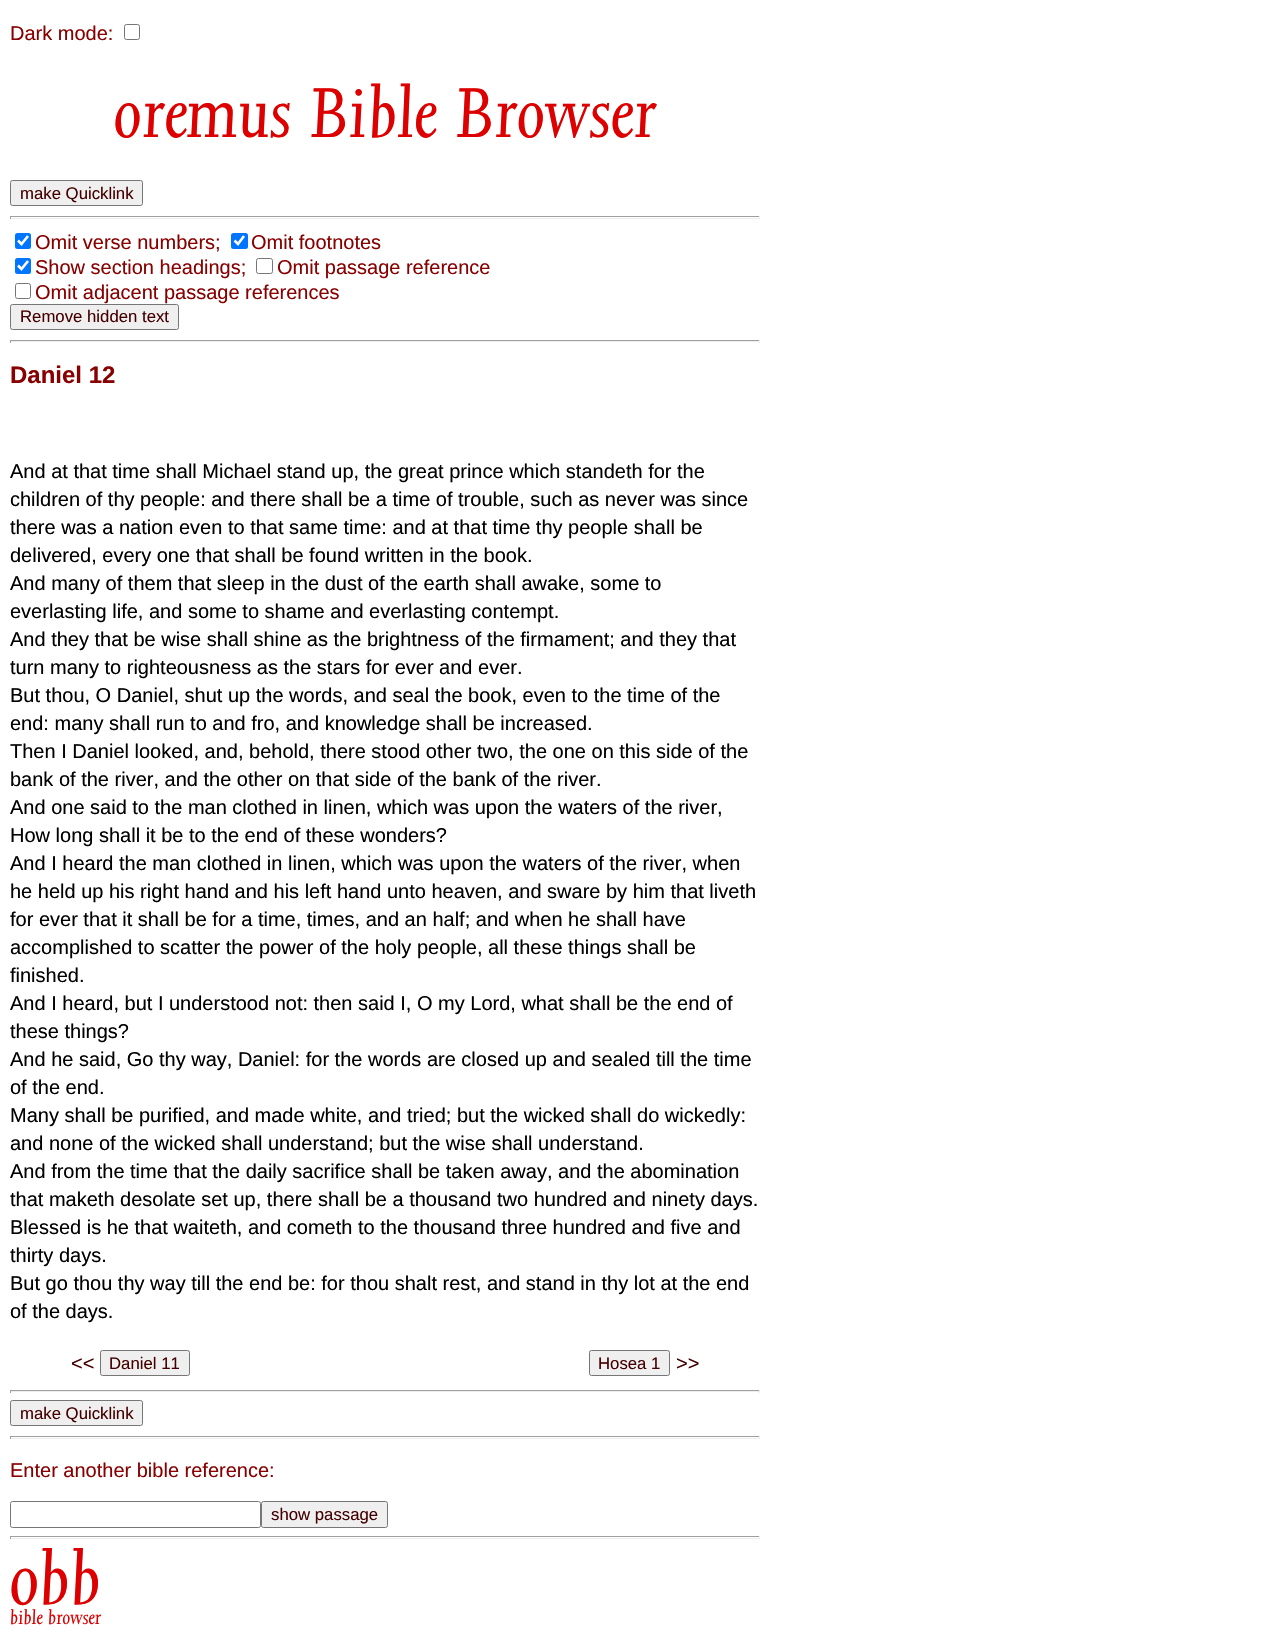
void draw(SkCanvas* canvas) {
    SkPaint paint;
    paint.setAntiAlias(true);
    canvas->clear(0xFFFFFFFF);
    SkFont font1(fontMgr->matchFamilyStyle("Liberation Sans", SkFontStyle::Normal()), 20);
    font1.setSubpixel(true);
    paint.setColor(0xFF880000);
    canvas->drawString("Dark mode:", 10, 40, font1, paint);
    paint.setStyle(SkPaint::kStroke_Style);
    paint.setStrokeWidth(1);
    paint.setColor(0xFF767676);
    canvas->drawRoundRect(SkRect::MakeXYWH(124.5f, 24.5f, 15, 15), 2, 2, paint);
    SkFont font2(fontMgr->matchFamilyStyle("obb", SkFontStyle::Normal()), 81.25f);
    font2.setSubpixel(true);
    paint.setStyle(SkPaint::kFill_Style);
    paint.setColor(0xFFDD0000);
    canvas->drawString("oremus Bible Browser", 114, 137, font2, paint);
    paint.setColor(0xFFEFEFEF);
    canvas->drawRoundRect(SkRect::MakeXYWH(10.5f, 180.5f, 132, 25), 2, 2, paint);
    paint.setStyle(SkPaint::kStroke_Style);
    paint.setColor(0xFF767676);
    canvas->drawRoundRect(SkRect::MakeXYWH(10.5f, 180.5f, 132, 25), 2, 2, paint);
    SkFont font3(fontMgr->matchFamilyStyle("Liberation Sans", SkFontStyle::Normal()), 16.75f);
    font3.setSubpixel(true);
    paint.setStyle(SkPaint::kFill_Style);
    paint.setColor(0xFF440000);
    canvas->drawString("make Quicklink", 20, 199, font3, paint);
    paint.setColor(0xFF9F9F9F);
    canvas->drawRect(SkRect::MakeXYWH(10, 216, 750, 1), paint);
    paint.setColor(0xFFEEEEEE);
    canvas->drawRect(SkRect::MakeXYWH(759, 216, 1, 3), paint);
    canvas->drawRect(SkRect::MakeXYWH(10, 218, 750, 1), paint);
    paint.setColor(0xFF9F9F9F);
    canvas->drawRect(SkRect::MakeXYWH(10, 216, 1, 3), paint);
    paint.setColor(0xFF0075FF);
    canvas->drawRoundRect(SkRect::MakeXYWH(15, 233, 16, 16), 2.5f, 2.5f, paint);
    paint.setStyle(SkPaint::kStroke_Style);
    paint.setStrokeWidth(2.6f);
    paint.setColor(0xFFFFFFFF);
    canvas->drawPath(SkPathBuilder().moveTo(18, 240.5f).lineTo(21.5f, 244).lineTo(28, 236).detach(), paint);
    paint.setStyle(SkPaint::kFill_Style);
    paint.setColor(0xFF880000);
    canvas->drawString("Omit verse numbers;", 35, 249, font1, paint);
    paint.setColor(0xFF0075FF);
    canvas->drawRoundRect(SkRect::MakeXYWH(231, 233, 17, 16), 2.5f, 2.5f, paint);
    paint.setStyle(SkPaint::kStroke_Style);
    paint.setColor(0xFFFFFFFF);
    canvas->drawPath(SkPathBuilder().moveTo(234.5f, 240.5f).lineTo(238, 244).lineTo(244, 236).detach(), paint);
    paint.setStyle(SkPaint::kFill_Style);
    paint.setColor(0xFF880000);
    canvas->drawString("Omit footnotes", 251, 249, font1, paint);
    paint.setColor(0xFF0075FF);
    canvas->drawRoundRect(SkRect::MakeXYWH(15, 258, 16, 16), 2.5f, 2.5f, paint);
    paint.setStyle(SkPaint::kStroke_Style);
    paint.setColor(0xFFFFFFFF);
    canvas->drawPath(SkPathBuilder().moveTo(18, 265.5f).lineTo(21.5f, 269).lineTo(28, 261).detach(), paint);
    paint.setStyle(SkPaint::kFill_Style);
    paint.setColor(0xFF880000);
    canvas->drawString("Show section headings;", 35, 274, font1, paint);
    paint.setStyle(SkPaint::kStroke_Style);
    paint.setStrokeWidth(1);
    paint.setColor(0xFF767676);
    canvas->drawRoundRect(SkRect::MakeXYWH(256.5f, 258.5f, 16, 15), 2, 2, paint);
    paint.setStyle(SkPaint::kFill_Style);
    paint.setColor(0xFF880000);
    canvas->drawString("Omit passage reference", 277, 274, font1, paint);
    paint.setStyle(SkPaint::kStroke_Style);
    paint.setColor(0xFF767676);
    canvas->drawRoundRect(SkRect::MakeXYWH(15.5f, 283.5f, 15, 15), 2, 2, paint);
    paint.setStyle(SkPaint::kFill_Style);
    paint.setColor(0xFF880000);
    canvas->drawString("Omit adjacent passage references", 35, 299, font1, paint);
    paint.setColor(0xFFEFEFEF);
    canvas->drawRoundRect(SkRect::MakeXYWH(10.5f, 304.5f, 168, 25), 2, 2, paint);
    paint.setStyle(SkPaint::kStroke_Style);
    paint.setColor(0xFF767676);
    canvas->drawRoundRect(SkRect::MakeXYWH(10.5f, 304.5f, 168, 25), 2, 2, paint);
    paint.setStyle(SkPaint::kFill_Style);
    paint.setColor(0xFF440000);
    canvas->drawString("Remove hidden text", 20, 322, font3, paint);
    paint.setColor(0xFF9F9F9F);
    canvas->drawRect(SkRect::MakeXYWH(10, 340, 750, 1), paint);
    paint.setColor(0xFFEEEEEE);
    canvas->drawRect(SkRect::MakeXYWH(759, 340, 1, 3), paint);
    canvas->drawRect(SkRect::MakeXYWH(10, 341, 750, 1), paint);
    paint.setColor(0xFF9F9F9F);
    canvas->drawRect(SkRect::MakeXYWH(10, 340, 1, 3), paint);
    SkFont font4(fontMgr->matchFamilyStyle("Liberation Sans", SkFontStyle::Bold()), 24);
    font4.setSubpixel(true);
    paint.setColor(0xFF880000);
    canvas->drawString("Daniel 12", 10, 383, font4, paint);
    paint.setColor(0xFF010000);
    canvas->drawString("And at that time shall Michael stand up, the great prince which standeth for the", 10, 478, font1, paint);
    canvas->drawString("children of thy people: and there shall be a time of trouble, such as never was since", 10, 506, font1, paint);
    canvas->drawString("there was a nation even to that same time: and at that time thy people shall be", 10, 534, font1, paint);
    canvas->drawString("delivered, every one that shall be found written in the book.", 10, 562, font1, paint);
    canvas->drawString("And many of them that sleep in the dust of the earth shall awake, some to", 10, 590, font1, paint);
    canvas->drawString("everlasting life, and some to shame and everlasting contempt.", 10, 618, font1, paint);
    canvas->drawString("And they that be wise shall shine as the brightness of the firmament; and they that", 10, 646, font1, paint);
    canvas->drawString("turn many to righteousness as the stars for ever and ever.", 10, 674, font1, paint);
    canvas->drawString("But thou, O Daniel, shut up the words, and seal the book, even to the time of the", 10, 702, font1, paint);
    canvas->drawString("end: many shall run to and fro, and knowledge shall be increased.", 10, 730, font1, paint);
    canvas->drawString("Then I Daniel looked, and, behold, there stood other two, the one on this side of the", 10, 758, font1, paint);
    canvas->drawString("bank of the river, and the other on that side of the bank of the river.", 10, 786, font1, paint);
    canvas->drawString("And one said to the man clothed in linen, which was upon the waters of the river,", 10, 814, font1, paint);
    canvas->drawString("How long shall it be to the end of these wonders?", 10, 842, font1, paint);
    canvas->drawString("And I heard the man clothed in linen, which was upon the waters of the river, when", 10, 870, font1, paint);
    canvas->drawString("he held up his right hand and his left hand unto heaven, and sware by him that liveth", 10, 898, font1, paint);
    canvas->drawString("for ever that it shall be for a time, times, and an half; and when he shall have", 10, 926, font1, paint);
    canvas->drawString("accomplished to scatter the power of the holy people, all these things shall be", 10, 954, font1, paint);
    canvas->drawString("finished.", 10, 982, font1, paint);
    canvas->drawString("And I heard, but I understood not: then said I, O my Lord, what shall be the end of", 10, 1010, font1, paint);
    canvas->drawString("these things?", 10, 1038, font1, paint);
    canvas->drawString("And he said, Go thy way, Daniel: for the words are closed up and sealed till the time", 10, 1066, font1, paint);
    canvas->drawString("of the end.", 10, 1094, font1, paint);
    canvas->drawString("Many shall be purified, and made white, and tried; but the wicked shall do wickedly:", 10, 1122, font1, paint);
    canvas->drawString("and none of the wicked shall understand; but the wise shall understand.", 10, 1150, font1, paint);
    canvas->drawString("And from the time that the daily sacrifice shall be taken away, and the abomination", 10, 1178, font1, paint);
    canvas->drawString("that maketh desolate set up, there shall be a thousand two hundred and ninety days.", 10, 1206, font1, paint);
    canvas->drawString("Blessed is he that waiteth, and cometh to the thousand three hundred and five and", 10, 1234, font1, paint);
    canvas->drawString("thirty days.", 10, 1262, font1, paint);
    canvas->drawString("But go thou thy way till the end be: for thou shalt rest, and stand in thy lot at the end", 10, 1290, font1, paint);
    canvas->drawString("of the days.", 10, 1318, font1, paint);
    paint.setColor(0xFF440000);
    canvas->drawString("<<", 71, 1370, font1, paint);
    paint.setColor(0xFFEFEFEF);
    canvas->drawRoundRect(SkRect::MakeXYWH(100.5f, 1350.5f, 89, 25), 2, 2, paint);
    paint.setStyle(SkPaint::kStroke_Style);
    paint.setColor(0xFF767676);
    canvas->drawRoundRect(SkRect::MakeXYWH(100.5f, 1350.5f, 89, 25), 2, 2, paint);
    paint.setStyle(SkPaint::kFill_Style);
    paint.setColor(0xFF440000);
    canvas->drawString("Daniel 11", 109, 1369, font3, paint);
    paint.setColor(0xFFEFEFEF);
    canvas->drawRoundRect(SkRect::MakeXYWH(589.5f, 1350.5f, 80, 25), 2, 2, paint);
    paint.setStyle(SkPaint::kStroke_Style);
    paint.setColor(0xFF767676);
    canvas->drawRoundRect(SkRect::MakeXYWH(589.5f, 1350.5f, 80, 25), 2, 2, paint);
    paint.setStyle(SkPaint::kFill_Style);
    paint.setColor(0xFF440000);
    canvas->drawString("Hosea 1", 598, 1369, font3, paint);
    canvas->drawString(">>", 676, 1370, font1, paint);
    paint.setColor(0xFF9F9F9F);
    canvas->drawRect(SkRect::MakeXYWH(10, 1390, 750, 1), paint);
    paint.setColor(0xFFEEEEEE);
    canvas->drawRect(SkRect::MakeXYWH(759, 1390, 1, 3), paint);
    canvas->drawRect(SkRect::MakeXYWH(10, 1391, 750, 1), paint);
    paint.setColor(0xFF9F9F9F);
    canvas->drawRect(SkRect::MakeXYWH(10, 1390, 1, 3), paint);
    paint.setColor(0xFFEFEFEF);
    canvas->drawRoundRect(SkRect::MakeXYWH(10.5f, 1400.5f, 132, 25), 2, 2, paint);
    paint.setStyle(SkPaint::kStroke_Style);
    paint.setColor(0xFF767676);
    canvas->drawRoundRect(SkRect::MakeXYWH(10.5f, 1400.5f, 132, 25), 2, 2, paint);
    paint.setStyle(SkPaint::kFill_Style);
    paint.setColor(0xFF440000);
    canvas->drawString("make Quicklink", 20, 1419, font3, paint);
    paint.setColor(0xFF9F9F9F);
    canvas->drawRect(SkRect::MakeXYWH(10, 1436, 750, 1), paint);
    paint.setColor(0xFFEEEEEE);
    canvas->drawRect(SkRect::MakeXYWH(759, 1436, 1, 3), paint);
    canvas->drawRect(SkRect::MakeXYWH(10, 1438, 750, 1), paint);
    paint.setColor(0xFF9F9F9F);
    canvas->drawRect(SkRect::MakeXYWH(10, 1436, 1, 3), paint);
    paint.setColor(0xFF880000);
    canvas->drawString("Enter another bible reference:", 10, 1477, font1, paint);
    paint.setStyle(SkPaint::kStroke_Style);
    paint.setColor(0xFF767676);
    canvas->drawRoundRect(SkRect::MakeXYWH(10.5f, 1501.5f, 250, 26), 2, 2, paint);
    paint.setStyle(SkPaint::kFill_Style);
    paint.setColor(0xFFEFEFEF);
    canvas->drawRoundRect(SkRect::MakeXYWH(261.5f, 1501.5f, 126, 26), 2, 2, paint);
    paint.setStyle(SkPaint::kStroke_Style);
    paint.setColor(0xFF767676);
    canvas->drawRoundRect(SkRect::MakeXYWH(261.5f, 1501.5f, 126, 26), 2, 2, paint);
    paint.setStyle(SkPaint::kFill_Style);
    paint.setColor(0xFF440000);
    canvas->drawString("show passage", 271, 1520, font3, paint);
    paint.setColor(0xFF9F9F9F);
    canvas->drawRect(SkRect::MakeXYWH(10, 1536, 750, 1), paint);
    paint.setColor(0xFFEEEEEE);
    canvas->drawRect(SkRect::MakeXYWH(759, 1536, 1, 3), paint);
    canvas->drawRect(SkRect::MakeXYWH(10, 1538, 750, 1), paint);
    paint.setColor(0xFF9F9F9F);
    canvas->drawRect(SkRect::MakeXYWH(10, 1536, 1, 3), paint);
    SkFont font5(fontMgr->matchFamilyStyle("obb", SkFontStyle::Normal()), 85);
    font5.setSubpixel(true);
    paint.setColor(0xFFDD0000);
    canvas->drawString("obb", 10, 1604, font5, paint);
    SkFont font6(fontMgr->matchFamilyStyle("obb", SkFontStyle::Normal()), 22.5f);
    font6.setSubpixel(true);
    canvas->drawString("bible browser", 10, 1624, font6, paint);
}
